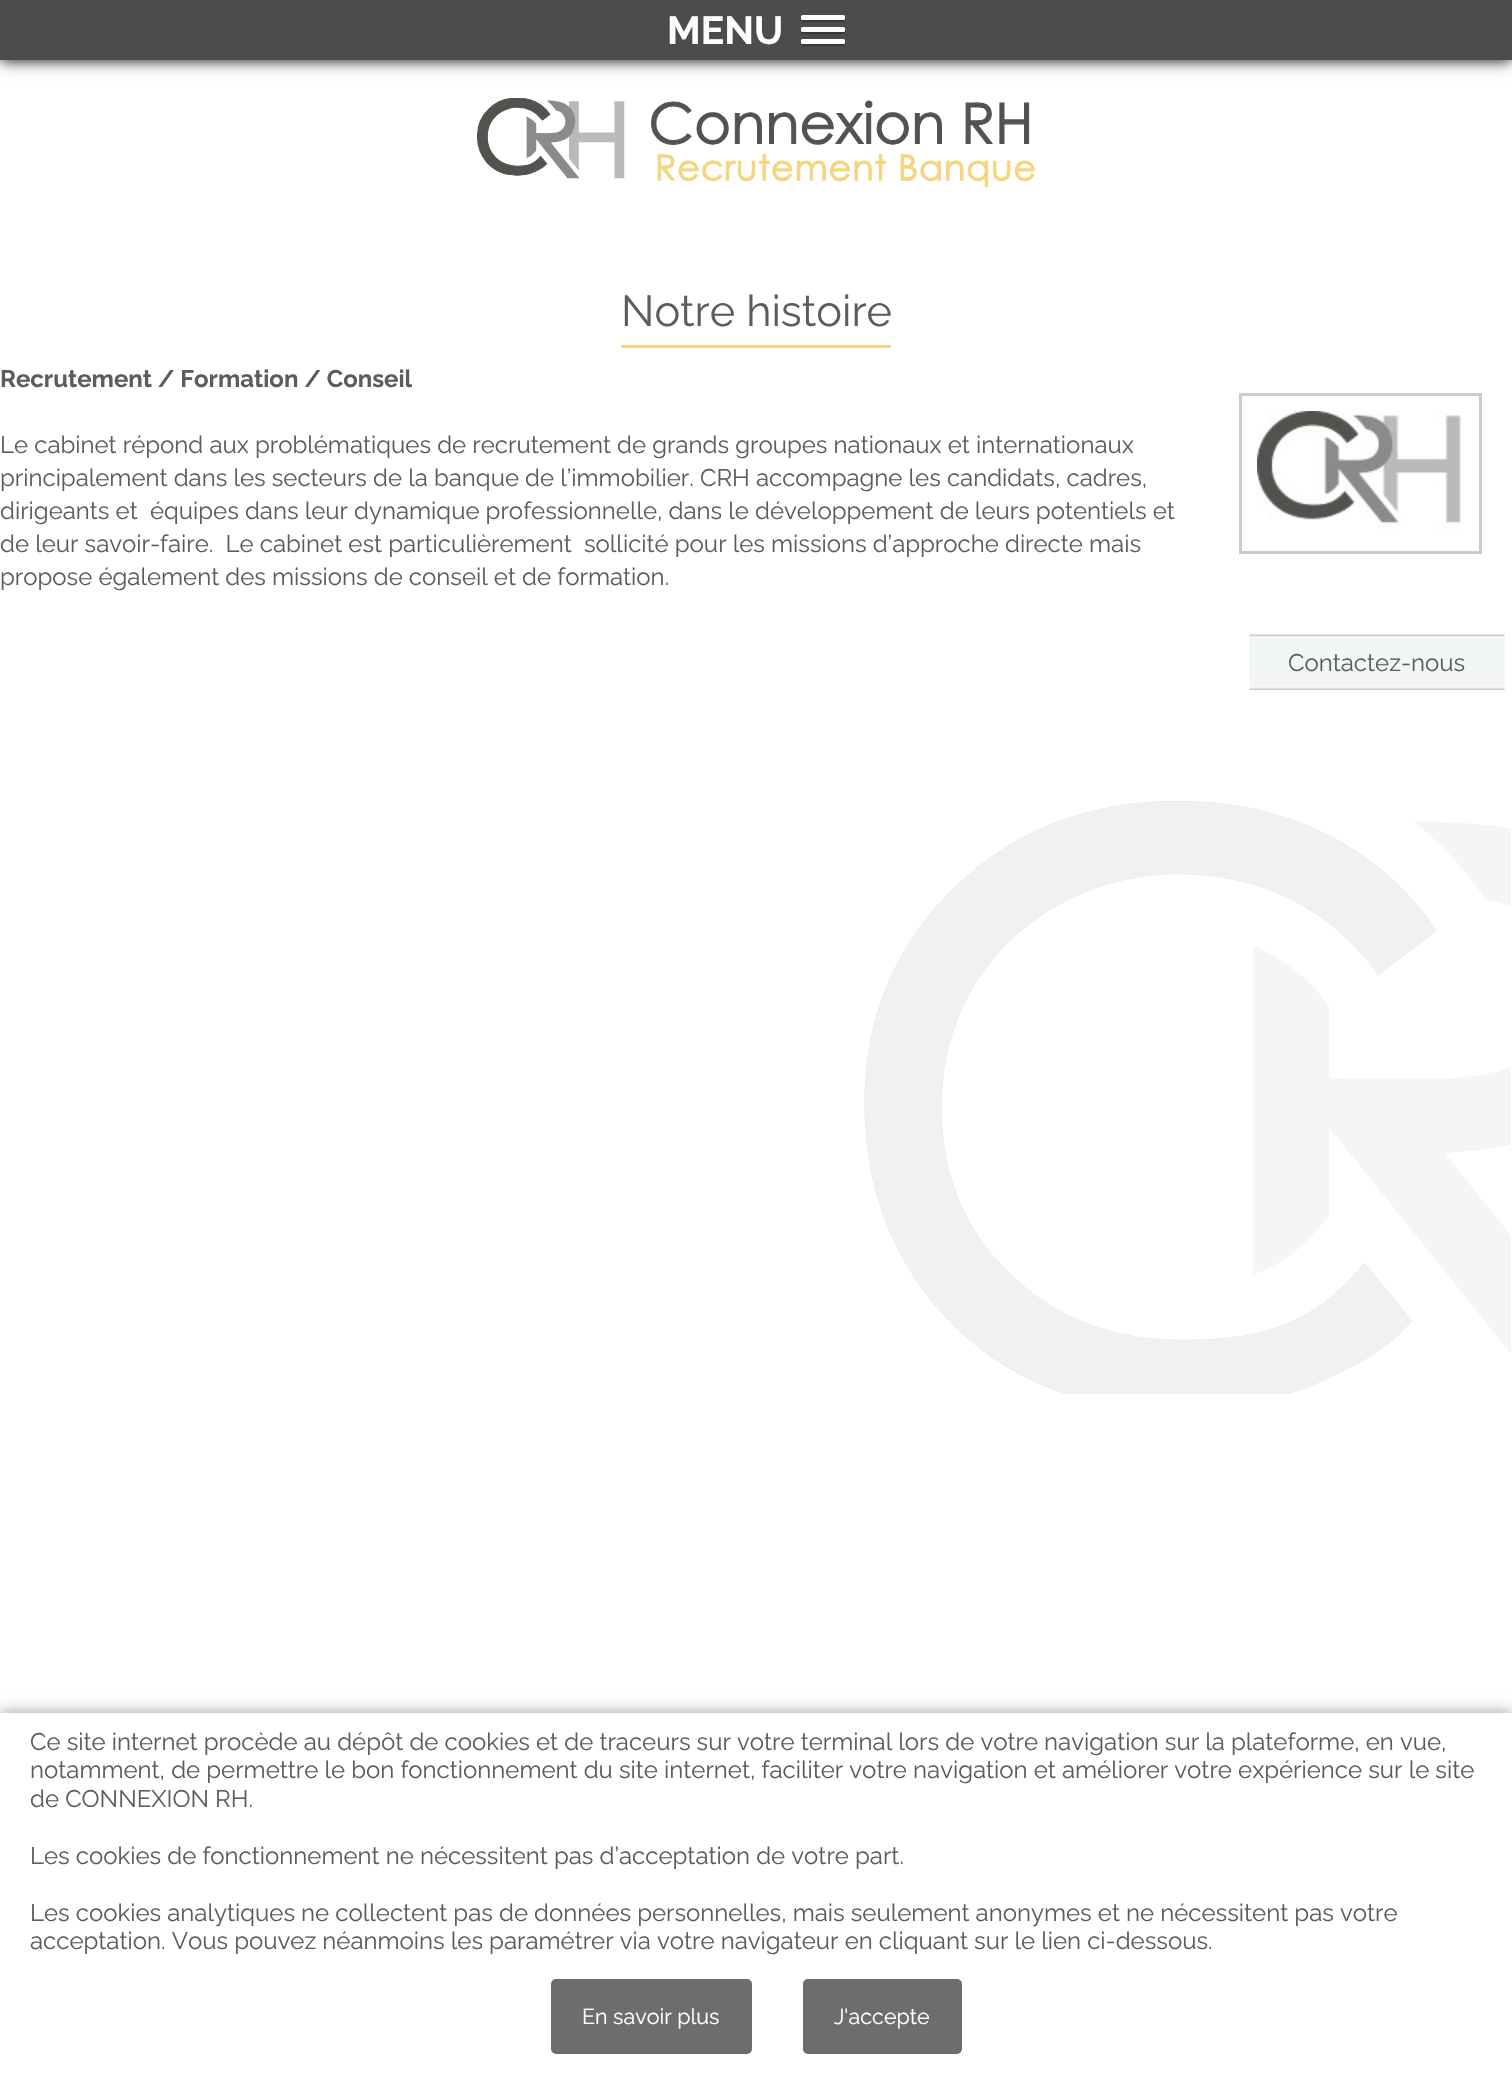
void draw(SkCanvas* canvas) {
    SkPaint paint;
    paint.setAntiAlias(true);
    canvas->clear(0xFFFFFFFF);
    paint.setColor(0xFF000000);
    paint.setMaskFilter(SkMaskFilter::MakeBlur(kNormal_SkBlurStyle, 7.5f));
    canvas->drawRect(SkRect::MakeXYWH(0, 0, 1512, 60), paint);
    paint.setMaskFilter(nullptr);
    paint.setColor(0xFF4C4C4C);
    canvas->drawRect(SkRect::MakeXYWH(0, 0, 1512, 60), paint);
    SkFont font1(fontMgr->matchFamilyStyle("Raleway", SkFontStyle::Bold()), 39);
    font1.setSubpixel(true);
    paint.setColor(0xFFFFFFFF);
    canvas->drawString("MENU", 667, 44, font1, paint);
    paint.setColor(0xFF393939);
    canvas->drawPath(SkPathBuilder().moveTo(801, 18).cubicTo(800, 24, 805, 22, 809, 22).lineTo(844, 22).cubicTo(846, 21, 846, 18, 844, 17).lineTo(844, 18).cubicTo(844, 19, 844, 20, 843, 20).lineTo(802, 20).cubicTo(802, 20, 801, 19, 801, 18).close().detach(), paint);
    paint.setColor(0xFFFFFFFF);
    canvas->drawRoundRect(SkRect::MakeXYWH(801, 15, 44, 5), 1.5f, 1.5f, paint);
    paint.setColor(0xFF393939);
    canvas->drawPath(SkPathBuilder().moveTo(801, 30).cubicTo(800, 36, 805, 34, 809, 34).lineTo(844, 34).cubicTo(846, 33, 846, 30, 844, 29).lineTo(844, 30).cubicTo(844, 31, 844, 32, 843, 32).lineTo(802, 32).cubicTo(802, 32, 801, 31, 801, 30).close().detach(), paint);
    paint.setColor(0xFFFFFFFF);
    canvas->drawRoundRect(SkRect::MakeXYWH(801, 27, 44, 5), 1.5f, 1.5f, paint);
    paint.setColor(0xFF393939);
    canvas->drawPath(SkPathBuilder().moveTo(801, 42).cubicTo(800, 48, 805, 46, 809, 46).lineTo(844, 46).cubicTo(846, 45, 846, 42, 844, 41).lineTo(844, 42).cubicTo(844, 43, 844, 44, 843, 44).lineTo(802, 44).cubicTo(802, 44, 801, 43, 801, 42).close().detach(), paint);
    paint.setColor(0xFFFFFFFF);
    canvas->drawRoundRect(SkRect::MakeXYWH(801, 39, 44, 5), 1.5f, 1.5f, paint);
    canvas->drawImageRect(SkImages::DeferredFromEncodedData(SkData::MakeFromFileName("img1.png")), SkRect::MakeXYWH(477, 98, 558, 90), SkSamplingOptions());
    canvas->drawImageRect(SkImages::DeferredFromEncodedData(SkData::MakeFromFileName("img2.png")), SkRect::MakeXYWH(864, 801, 647, 593), SkSamplingOptions());
    paint.setColor(0xFFF2D680);
    canvas->drawRect(SkRect::MakeXYWH(621, 345, 270, 3), paint);
    SkFont font2(fontMgr->matchFamilyStyle("Raleway", SkFontStyle::Normal()), 43.25f);
    font2.setSubpixel(true);
    paint.setColor(0xFF5C5C5C);
    canvas->drawString("Notre histoire", 621, 326, font2, paint);
    SkFont font3(fontMgr->matchFamilyStyle("Raleway", SkFontStyle::Bold()), 24);
    font3.setSubpixel(true);
    canvas->drawString("Recrutement / Formation / Conseil", 0, 387, font3, paint);
    SkFont font4(fontMgr->matchFamilyStyle("Raleway", SkFontStyle::Normal()), 24);
    font4.setSubpixel(true);
    canvas->drawString("Le cabinet répond aux problématiques de recrutement de grands groupes nationaux et internationaux", 0, 453, font4, paint);
    canvas->drawString("principalement dans les secteurs de la banque de l’immobilier. CRH accompagne les candidats, cadres,", 0, 486, font4, paint);
    canvas->drawString("dirigeants et  équipes dans leur dynamique professionnelle, dans le développement de leurs potentiels et", 0, 519, font4, paint);
    canvas->drawString("de leur savoir-faire.  Le cabinet est particulièrement  sollicité pour les missions d’approche directe mais", 0, 552, font4, paint);
    canvas->drawString("propose également des missions de conseil et de formation.", 0, 585, font4, paint);
    paint.setStyle(SkPaint::kStroke_Style);
    paint.setStrokeWidth(3);
    paint.setColor(0xFFCCCCCC);
    canvas->drawRect(SkRect::MakeXYWH(1240.5f, 394.5f, 240, 158), paint);
    canvas->drawImageRect(SkImages::DeferredFromEncodedData(SkData::MakeFromFileName("img3.png")), SkRect::MakeXYWH(1257, 411, 205, 120), SkSamplingOptions());
    canvas->drawImageRect(SkImages::DeferredFromEncodedData(SkData::MakeFromFileName("img4.png")), SkRect::MakeXYWH(1249, 634, 256, 56), SkSamplingOptions());
    paint.setStyle(SkPaint::kFill_Style);
    paint.setColor(0xFF5C5C5C);
    canvas->drawString("Contactez-nous", 1288, 671, font4, paint);
    paint.setColor(0x66000000);
    paint.setMaskFilter(SkMaskFilter::MakeBlur(kNormal_SkBlurStyle, 7.5f));
    canvas->drawRect(SkRect::MakeXYWH(0, 1713, 1512, 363), paint);
    paint.setMaskFilter(nullptr);
    paint.setColor(0xFFFFFFFF);
    canvas->drawRect(SkRect::MakeXYWH(0, 1713, 1512, 362), paint);
    paint.setColor(0xFF5C5C5C);
    canvas->drawString("Ce site internet procède au dépôt de cookies et de traceurs sur votre terminal lors de votre navigation sur la plateforme, en vue,", 30, 1750, font4, paint);
    canvas->drawString("notamment, de permettre le bon fonctionnement du site internet, faciliter votre navigation et améliorer votre expérience sur le site", 30, 1778, font4, paint);
    canvas->drawString("de CONNEXION RH.", 30, 1807, font4, paint);
    canvas->drawString("Les cookies de fonctionnement ne nécessitent pas d’acceptation de votre part.", 30, 1864, font4, paint);
    canvas->drawString("Les cookies analytiques ne collectent pas de données personnelles, mais seulement anonymes et ne nécessitent pas votre", 30, 1921, font4, paint);
    canvas->drawString("acceptation. Vous pouvez néanmoins les paramétrer via votre navigateur en cliquant sur le lien ci-dessous.", 30, 1949, font4, paint);
    paint.setColor(0xFF6D6D6D);
    canvas->drawRoundRect(SkRect::MakeXYWH(552, 1980, 199, 73), 4, 4, paint);
    paint.setStyle(SkPaint::kStroke_Style);
    paint.setStrokeWidth(2);
    canvas->drawRoundRect(SkRect::MakeXYWH(552, 1980, 199, 73), 4, 4, paint);
    SkFont font5(fontMgr->matchFamilyStyle("Raleway", SkFontStyle::Normal()), 21.5f);
    font5.setSubpixel(true);
    paint.setStyle(SkPaint::kFill_Style);
    paint.setColor(0xFFFFFFFF);
    canvas->drawString("En savoir plus", 582, 2024, font5, paint);
    paint.setColor(0xFF6D6D6D);
    canvas->drawRoundRect(SkRect::MakeXYWH(804, 1980, 157, 73), 4, 4, paint);
    paint.setStyle(SkPaint::kStroke_Style);
    canvas->drawRoundRect(SkRect::MakeXYWH(804, 1980, 157, 73), 4, 4, paint);
    paint.setStyle(SkPaint::kFill_Style);
    paint.setColor(0xFFFFFFFF);
    canvas->drawString("J'accepte", 834, 2024, font5, paint);
}
